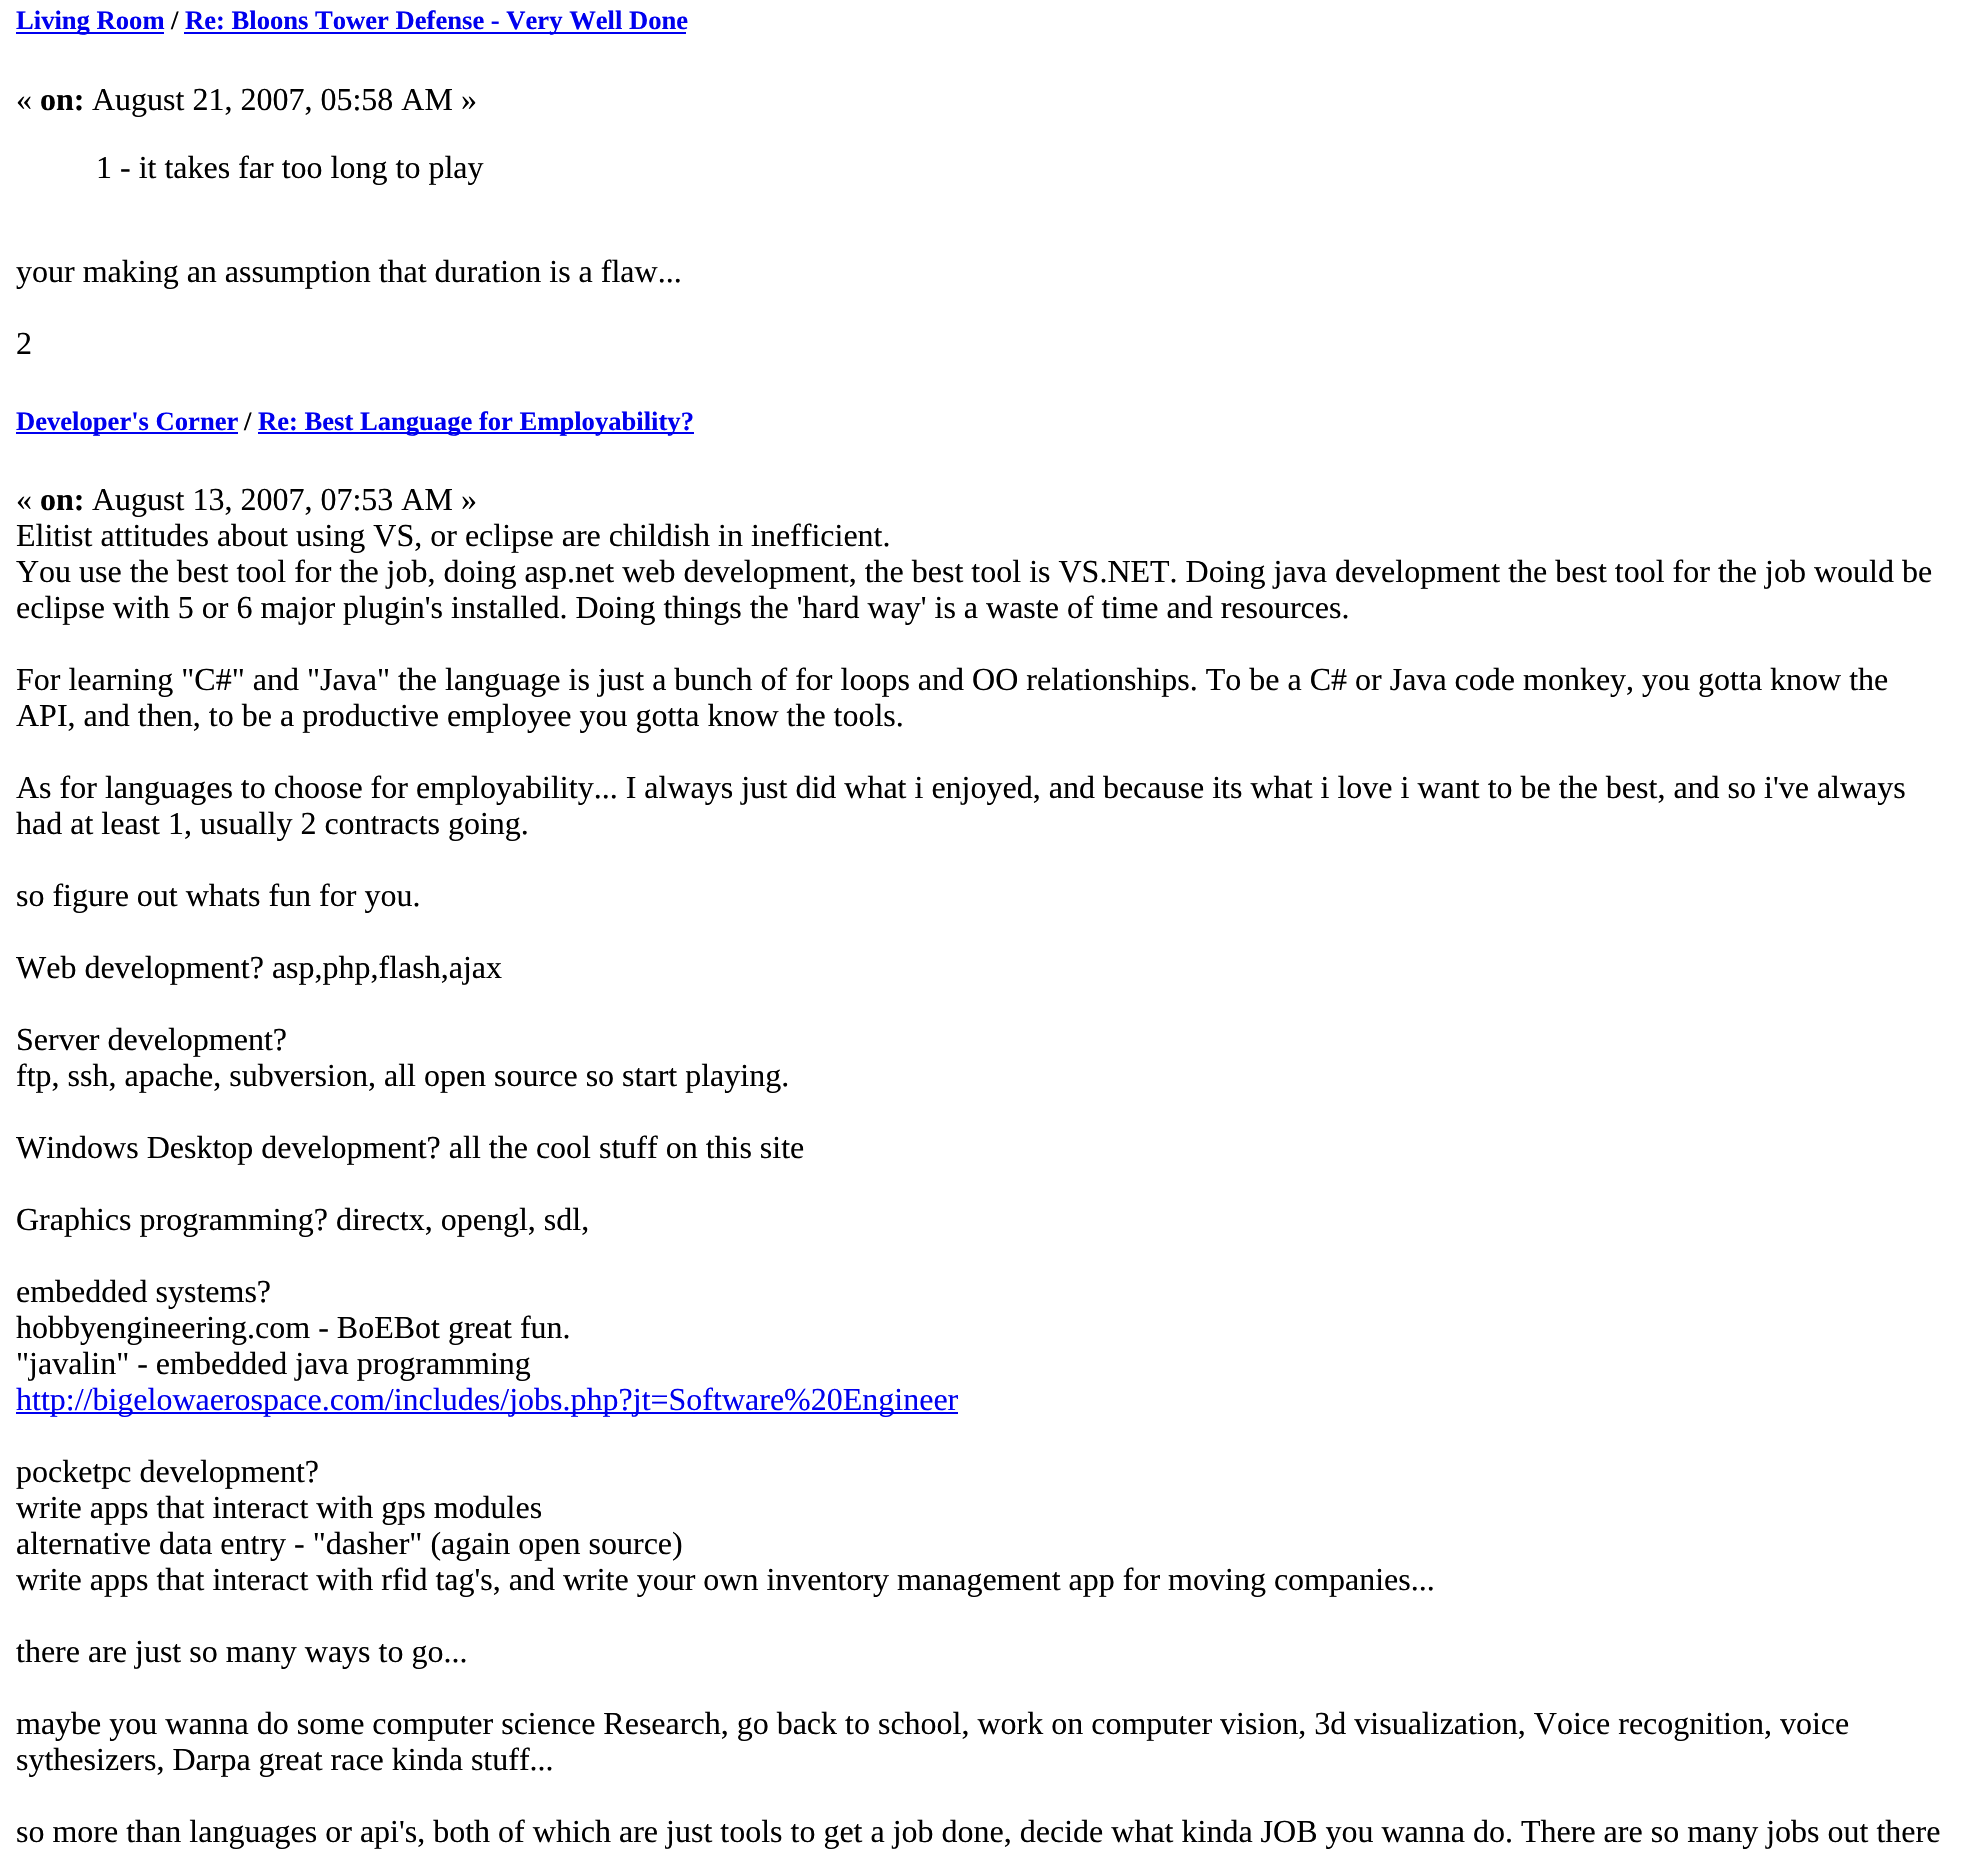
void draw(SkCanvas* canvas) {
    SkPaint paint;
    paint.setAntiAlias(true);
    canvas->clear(0xFFFFFFFF);
    paint.setColor(0xFF0000EE);
    canvas->drawRect(SkRect::MakeXYWH(16, 32, 148, 2), paint);
    SkFont font1(fontMgr->matchFamilyStyle("Liberation Serif", SkFontStyle::Bold()), 26.6f);
    font1.setSubpixel(true);
    canvas->drawString("Living Room", 16, 29, font1, paint);
    paint.setColor(0xFF000000);
    canvas->drawString("/", 171, 29, font1, paint);
    paint.setColor(0xFF0000EE);
    canvas->drawRect(SkRect::MakeXYWH(184, 32, 502, 2), paint);
    canvas->drawString("Re: Bloons Tower Defense - Very Well Done", 185, 29, font1, paint);
    SkFont font2(fontMgr->matchFamilyStyle("Liberation Serif", SkFontStyle::Normal()), 32);
    font2.setSubpixel(true);
    paint.setColor(0xFF000000);
    canvas->drawString("«", 16, 110, font2, paint);
    SkFont font3(fontMgr->matchFamilyStyle("Liberation Serif", SkFontStyle::Bold()), 32);
    font3.setSubpixel(true);
    canvas->drawString("on:", 40, 110, font3, paint);
    canvas->drawString("August 21, 2007, 05:58 AM »", 92, 110, font2, paint);
    canvas->drawString("1 - it takes far too long to play", 96, 178, font2, paint);
    canvas->drawString("your making an assumption that duration is a flaw...", 16, 282, font2, paint);
    canvas->drawString("2", 16, 354, font2, paint);
    paint.setColor(0xFF0000EE);
    canvas->drawRect(SkRect::MakeXYWH(16, 432, 222, 2), paint);
    canvas->drawString("Developer's Corner", 16, 430, font1, paint);
    paint.setColor(0xFF000000);
    canvas->drawString("/", 244, 430, font1, paint);
    paint.setColor(0xFF0000EE);
    canvas->drawRect(SkRect::MakeXYWH(258, 432, 436, 2), paint);
    canvas->drawString("Re: Best Language for Employability?", 258, 430, font1, paint);
    paint.setColor(0xFF000000);
    canvas->drawString("«", 16, 510, font2, paint);
    canvas->drawString("on:", 40, 510, font3, paint);
    canvas->drawString("August 13, 2007, 07:53 AM »", 92, 510, font2, paint);
    canvas->drawString("Elitist attitudes about using VS, or eclipse are childish in inefficient.", 16, 546, font2, paint);
    canvas->drawString("You use the best tool for the job, doing asp.net web development, the best tool is VS.NET. Doing java development the best tool for the job would be", 16, 582, font2, paint);
    canvas->drawString("eclipse with 5 or 6 major plugin's installed. Doing things the 'hard way' is a waste of time and resources.", 16, 618, font2, paint);
    canvas->drawString("For learning \"C#\" and \"Java\" the language is just a bunch of for loops and OO relationships. To be a C# or Java code monkey, you gotta know the", 16, 690, font2, paint);
    canvas->drawString("API, and then, to be a productive employee you gotta know the tools.", 16, 726, font2, paint);
    canvas->drawString("As for languages to choose for employability... I always just did what i enjoyed, and because its what i love i want to be the best, and so i've always", 16, 798, font2, paint);
    canvas->drawString("had at least 1, usually 2 contracts going.", 16, 834, font2, paint);
    canvas->drawString("so figure out whats fun for you.", 16, 906, font2, paint);
    canvas->drawString("Web development? asp,php,flash,ajax", 16, 978, font2, paint);
    canvas->drawString("Server development?", 16, 1050, font2, paint);
    canvas->drawString("ftp, ssh, apache, subversion, all open source so start playing.", 16, 1086, font2, paint);
    canvas->drawString("Windows Desktop development? all the cool stuff on this site", 16, 1158, font2, paint);
    canvas->drawString("Graphics programming? directx, opengl, sdl,", 16, 1230, font2, paint);
    canvas->drawString("embedded systems?", 16, 1302, font2, paint);
    canvas->drawString("hobbyengineering.com - BoEBot great fun.", 16, 1338, font2, paint);
    canvas->drawString("\"javalin\" - embedded java programming", 16, 1374, font2, paint);
    paint.setColor(0xFF0000EE);
    canvas->drawRect(SkRect::MakeXYWH(16, 1412, 942, 2), paint);
    canvas->drawString("http://bigelowaerospace.com/includes/jobs.php?jt=Software%20Engineer", 16, 1410, font2, paint);
    paint.setColor(0xFF000000);
    canvas->drawString("pocketpc development?", 16, 1482, font2, paint);
    canvas->drawString("write apps that interact with gps modules", 16, 1518, font2, paint);
    canvas->drawString("alternative data entry - \"dasher\" (again open source)", 16, 1554, font2, paint);
    canvas->drawString("write apps that interact with rfid tag's, and write your own inventory management app for moving companies...", 16, 1590, font2, paint);
    canvas->drawString("there are just so many ways to go...", 16, 1662, font2, paint);
    canvas->drawString("maybe you wanna do some computer science Research, go back to school, work on computer vision, 3d visualization, Voice recognition, voice", 16, 1734, font2, paint);
    canvas->drawString("sythesizers, Darpa great race kinda stuff...", 16, 1770, font2, paint);
    canvas->drawString("so more than languages or api's, both of which are just tools to get a job done, decide what kinda JOB you wanna do. There are so many jobs out there", 16, 1842, font2, paint);
}
